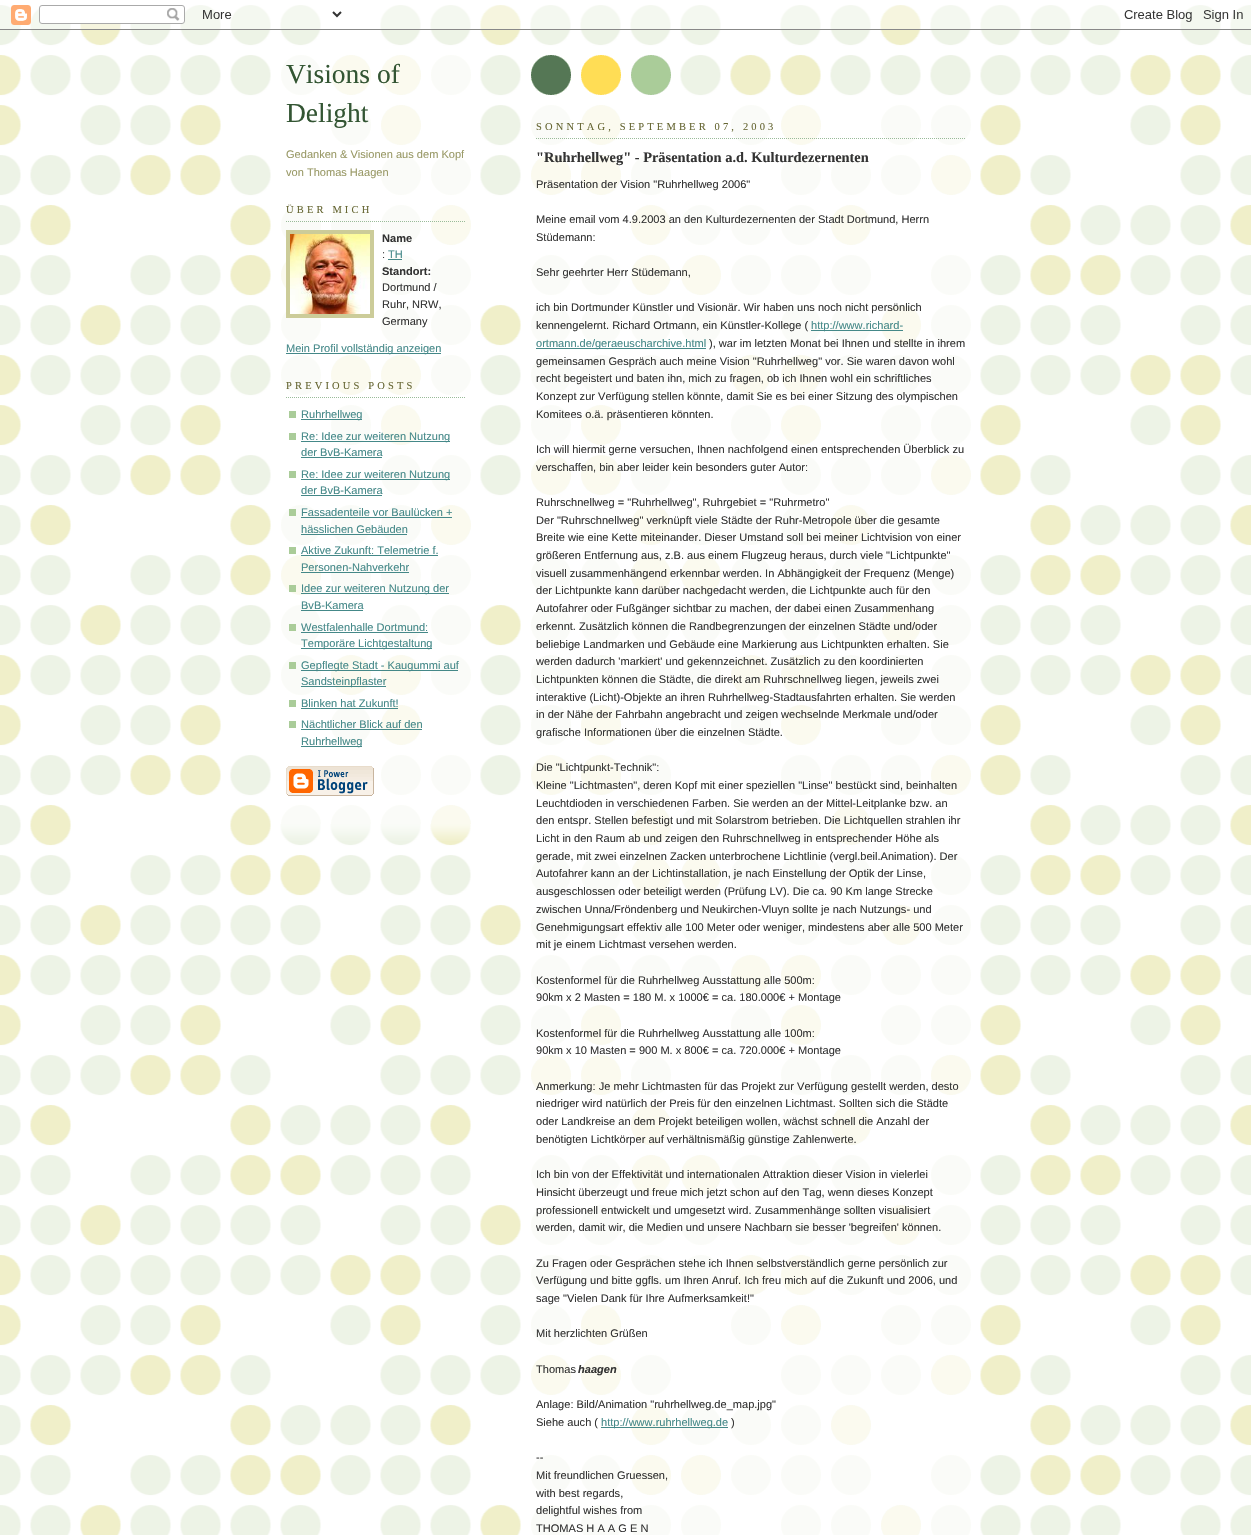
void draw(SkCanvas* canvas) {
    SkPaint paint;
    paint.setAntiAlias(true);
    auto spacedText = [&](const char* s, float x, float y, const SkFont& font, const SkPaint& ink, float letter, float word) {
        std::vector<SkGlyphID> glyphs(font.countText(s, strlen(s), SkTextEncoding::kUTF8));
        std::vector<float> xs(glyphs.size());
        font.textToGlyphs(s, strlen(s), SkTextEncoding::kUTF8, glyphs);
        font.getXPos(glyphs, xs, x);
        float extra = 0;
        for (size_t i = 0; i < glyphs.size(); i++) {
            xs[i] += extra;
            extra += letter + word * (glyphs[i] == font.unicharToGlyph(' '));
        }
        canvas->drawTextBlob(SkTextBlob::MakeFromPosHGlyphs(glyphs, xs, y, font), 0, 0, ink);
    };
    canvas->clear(0xFFFFFFFF);
    canvas->drawImageRect(SkImages::DeferredFromEncodedData(SkData::MakeFromFileName("img1.png")), SkRect::MakeXYWH(0, 5, 1251, 1530), SkSamplingOptions());
    canvas->drawImageRect(SkImages::DeferredFromEncodedData(SkData::MakeFromFileName("img2.png")), SkRect::MakeXYWH(0, 5, 1251, 25), SkSamplingOptions());
    canvas->drawImageRect(SkImages::DeferredFromEncodedData(SkData::MakeFromFileName("img3.png")), SkRect::MakeXYWH(530, 55, 141, 41), SkSamplingOptions());
    canvas->drawImageRect(SkImages::DeferredFromEncodedData(SkData::MakeFromFileName("img4.png")), SkRect::MakeXYWH(280, 824, 191, 17), SkSamplingOptions());
    canvas->drawImageRect(SkImages::DeferredFromEncodedData(SkData::MakeFromFileName("img5.png")), SkRect::MakeXYWH(280, 55, 191, 769), SkSamplingOptions());
    SkFont font1(fontMgr->matchFamilyStyle("Liberation Serif", SkFontStyle::Normal()), 27.5f);
    font1.setSubpixel(true);
    paint.setColor(0xFF335533);
    canvas->drawString("Visions of", 286, 83, font1, paint);
    canvas->drawString("Delight", 286, 122, font1, paint);
    SkFont font2(fontMgr->matchFamilyStyle("Liberation Sans", SkFontStyle::Normal()), 11.05f);
    font2.setSubpixel(true);
    paint.setColor(0xFF999966);
    canvas->drawString("Gedanken & Visionen aus dem Kopf", 286, 158, font2, paint);
    canvas->drawString("von Thomas Haagen", 286, 176, font2, paint);
    paint.setStyle(SkPaint::kStroke_Style);
    paint.setStrokeWidth(1);
    paint.setColor(0xFF99BB99);
    paint.setPathEffect(SkDashPathEffect::Make({{1, 1}}, 0));
    canvas->drawPath(SkPathBuilder().moveTo(286, 221.5f).lineTo(466, 221.5f).detach(), paint);
    paint.setPathEffect(nullptr);
    SkFont font3(fontMgr->matchFamilyStyle("Liberation Serif", SkFontStyle::Normal()), 10.5f);
    font3.setSubpixel(true);
    paint.setStyle(SkPaint::kFill_Style);
    paint.setColor(0xFF666633);
    spacedText("ÜBER MICH", 286, 213, font3, paint, 3.15f, 0);
    paint.setStyle(SkPaint::kStroke_Style);
    paint.setStrokeWidth(4);
    paint.setColor(0xFFCCCC99);
    canvas->drawRect(SkRect::MakeXYWH(288, 232, 84, 84), paint);
    canvas->drawImageRect(SkImages::DeferredFromEncodedData(SkData::MakeFromFileName("img6.png")), SkRect::MakeXYWH(290, 234, 80, 80), SkSamplingOptions());
    SkFont font4(fontMgr->matchFamilyStyle("Liberation Sans", SkFontStyle::Bold()), 11.05f);
    font4.setSubpixel(true);
    paint.setStyle(SkPaint::kFill_Style);
    paint.setColor(0xFF333333);
    canvas->drawString("Name", 382, 242, font4, paint);
    canvas->drawString(":", 382, 258, font2, paint);
    paint.setColor(0xFF448888);
    canvas->drawString("TH", 388, 258, font2, paint);
    canvas->drawRect(SkRect::MakeXYWH(388, 259, 14, 1), paint);
    paint.setColor(0xFF333333);
    canvas->drawString("Standort:", 382, 275, font4, paint);
    canvas->drawString("Dortmund /", 382, 291, font2, paint);
    canvas->drawString("Ruhr, NRW,", 382, 308, font2, paint);
    canvas->drawString("Germany", 382, 325, font2, paint);
    paint.setColor(0xFF448888);
    canvas->drawRect(SkRect::MakeXYWH(286, 353, 155, 1), paint);
    canvas->drawString("Mein Profil vollständig anzeigen", 286, 352, font2, paint);
    paint.setStyle(SkPaint::kStroke_Style);
    paint.setStrokeWidth(1);
    paint.setColor(0xFF99BB99);
    paint.setPathEffect(SkDashPathEffect::Make({{1, 1}}, 0));
    canvas->drawPath(SkPathBuilder().moveTo(286, 397.5f).lineTo(466, 397.5f).detach(), paint);
    paint.setPathEffect(nullptr);
    paint.setStyle(SkPaint::kFill_Style);
    paint.setColor(0xFF666633);
    spacedText("PREVIOUS POSTS", 286, 389, font3, paint, 3.15f, 0);
    paint.setColor(0xFFAACC99);
    canvas->drawRect(SkRect::MakeXYWH(289, 411, 7, 7), paint);
    paint.setColor(0xFF448888);
    canvas->drawRect(SkRect::MakeXYWH(301, 419, 61, 1), paint);
    canvas->drawString("Ruhrhellweg", 301, 418, font2, paint);
    paint.setColor(0xFFAACC99);
    canvas->drawRect(SkRect::MakeXYWH(289, 433, 7, 7), paint);
    paint.setColor(0xFF448888);
    canvas->drawRect(SkRect::MakeXYWH(301, 441, 149, 1), paint);
    canvas->drawString("Re: Idee zur weiteren Nutzung", 301, 440, font2, paint);
    canvas->drawString("der BvB-Kamera", 301, 456, font2, paint);
    canvas->drawRect(SkRect::MakeXYWH(301, 457, 81, 1), paint);
    paint.setColor(0xFFAACC99);
    canvas->drawRect(SkRect::MakeXYWH(289, 471, 7, 7), paint);
    paint.setColor(0xFF448888);
    canvas->drawRect(SkRect::MakeXYWH(301, 479, 149, 1), paint);
    canvas->drawString("Re: Idee zur weiteren Nutzung", 301, 478, font2, paint);
    canvas->drawString("der BvB-Kamera", 301, 494, font2, paint);
    canvas->drawRect(SkRect::MakeXYWH(301, 495, 81, 1), paint);
    paint.setColor(0xFFAACC99);
    canvas->drawRect(SkRect::MakeXYWH(289, 509, 7, 7), paint);
    paint.setColor(0xFF448888);
    canvas->drawString("Fassadenteile vor Baulücken +", 301, 516, font2, paint);
    canvas->drawRect(SkRect::MakeXYWH(301, 517, 151, 1), paint);
    canvas->drawString("hässlichen Gebäuden", 301, 533, font2, paint);
    canvas->drawRect(SkRect::MakeXYWH(301, 534, 106, 1), paint);
    paint.setColor(0xFFAACC99);
    canvas->drawRect(SkRect::MakeXYWH(289, 547, 7, 7), paint);
    paint.setColor(0xFF448888);
    canvas->drawString("Aktive Zukunft: Telemetrie f.", 301, 554, font2, paint);
    canvas->drawRect(SkRect::MakeXYWH(301, 555, 137, 1), paint);
    canvas->drawString("Personen-Nahverkehr", 301, 571, font2, paint);
    canvas->drawRect(SkRect::MakeXYWH(301, 572, 108, 1), paint);
    paint.setColor(0xFFAACC99);
    canvas->drawRect(SkRect::MakeXYWH(289, 585, 7, 7), paint);
    paint.setColor(0xFF448888);
    canvas->drawRect(SkRect::MakeXYWH(301, 593, 148, 1), paint);
    canvas->drawString("Idee zur weiteren Nutzung der", 301, 592, font2, paint);
    canvas->drawString("BvB-Kamera", 301, 609, font2, paint);
    canvas->drawRect(SkRect::MakeXYWH(301, 610, 62, 1), paint);
    paint.setColor(0xFFAACC99);
    canvas->drawRect(SkRect::MakeXYWH(289, 624, 7, 7), paint);
    paint.setColor(0xFF448888);
    canvas->drawString("Westfalenhalle Dortmund:", 301, 631, font2, paint);
    canvas->drawRect(SkRect::MakeXYWH(301, 632, 127, 1), paint);
    canvas->drawRect(SkRect::MakeXYWH(301, 648, 131, 1), paint);
    canvas->drawString("Temporäre Lichtgestaltung", 301, 647, font2, paint);
    paint.setColor(0xFFAACC99);
    canvas->drawRect(SkRect::MakeXYWH(289, 662, 7, 7), paint);
    paint.setColor(0xFF448888);
    canvas->drawRect(SkRect::MakeXYWH(301, 670, 157, 1), paint);
    canvas->drawString("Gepflegte Stadt - Kaugummi auf", 301, 669, font2, paint);
    canvas->drawRect(SkRect::MakeXYWH(301, 686, 85, 1), paint);
    canvas->drawString("Sandsteinpflaster", 301, 685, font2, paint);
    paint.setColor(0xFFAACC99);
    canvas->drawRect(SkRect::MakeXYWH(289, 700, 7, 7), paint);
    paint.setColor(0xFF448888);
    canvas->drawString("Blinken hat Zukunft!", 301, 707, font2, paint);
    canvas->drawRect(SkRect::MakeXYWH(301, 708, 97, 1), paint);
    paint.setColor(0xFFAACC99);
    canvas->drawRect(SkRect::MakeXYWH(289, 721, 7, 7), paint);
    paint.setColor(0xFF448888);
    canvas->drawString("Nächtlicher Blick auf den", 301, 728, font2, paint);
    canvas->drawRect(SkRect::MakeXYWH(301, 729, 121, 1), paint);
    canvas->drawRect(SkRect::MakeXYWH(301, 746, 61, 1), paint);
    canvas->drawString("Ruhrhellweg", 301, 745, font2, paint);
    canvas->drawImageRect(SkImages::DeferredFromEncodedData(SkData::MakeFromFileName("img7.png")), SkRect::MakeXYWH(286, 766, 88, 30), SkSamplingOptions());
    canvas->drawImageRect(SkImages::DeferredFromEncodedData(SkData::MakeFromFileName("img8.png")), SkRect::MakeXYWH(530, 105, 441, 1430), SkSamplingOptions());
    paint.setStyle(SkPaint::kStroke_Style);
    paint.setColor(0xFF99BB99);
    paint.setPathEffect(SkDashPathEffect::Make({{1, 1}}, 0));
    canvas->drawPath(SkPathBuilder().moveTo(536, 138.5f).lineTo(966, 138.5f).detach(), paint);
    paint.setPathEffect(nullptr);
    paint.setStyle(SkPaint::kFill_Style);
    paint.setColor(0xFF666633);
    spacedText("SONNTAG, SEPTEMBER 07, 2003", 536, 130, font3, paint, 3.15f, 0);
    SkFont font5(fontMgr->matchFamilyStyle("Liberation Serif", SkFontStyle::Bold()), 14.4f);
    font5.setSubpixel(true);
    paint.setColor(0xFF333333);
    canvas->drawString("\"Ruhrhellweg\" - Präsentation a.d. Kulturdezernenten", 536, 162, font5, paint);
    canvas->drawString("Präsentation der Vision \"Ruhrhellweg 2006\"", 536, 188, font2, paint);
    canvas->drawString("Meine email vom 4.9.2003 an den Kulturdezernenten der Stadt Dortmund, Herrn", 536, 223, font2, paint);
    canvas->drawString("Stüdemann:", 536, 241, font2, paint);
    canvas->drawString("Sehr geehrter Herr Stüdemann,", 536, 276, font2, paint);
    canvas->drawString("ich bin Dortmunder Künstler und Visionär. Wir haben uns noch nicht persönlich", 536, 311, font2, paint);
    canvas->drawString("kennengelernt. Richard Ortmann, ein Künstler-Kollege (", 536, 329, font2, paint);
    paint.setColor(0xFF448888);
    canvas->drawRect(SkRect::MakeXYWH(811, 330, 92, 1), paint);
    canvas->drawString("http://www.richard-", 811, 329, font2, paint);
    canvas->drawRect(SkRect::MakeXYWH(536, 348, 170, 1), paint);
    canvas->drawString("ortmann.de/geraeuscharchive.html", 536, 347, font2, paint);
    paint.setColor(0xFF333333);
    canvas->drawString("), war im letzten Monat bei Ihnen und stellte in ihrem", 709, 347, font2, paint);
    canvas->drawString("gemeinsamen Gespräch auch meine Vision \"Ruhrhellweg\" vor. Sie waren davon wohl", 536, 365, font2, paint);
    canvas->drawString("recht begeistert und baten ihn, mich zu fragen, ob ich Ihnen wohl ein schriftliches", 536, 382, font2, paint);
    canvas->drawString("Konzept zur Verfügung stellen könnte, damit Sie es bei einer Sitzung des olympischen", 536, 400, font2, paint);
    canvas->drawString("Komitees o.ä. präsentieren könnten.", 536, 418, font2, paint);
    canvas->drawString("Ich will hiermit gerne versuchen, Ihnen nachfolgend einen entsprechenden Überblick zu", 536, 453, font2, paint);
    canvas->drawString("verschaffen, bin aber leider kein besonders guter Autor:", 536, 471, font2, paint);
    canvas->drawString("Ruhrschnellweg = \"Ruhrhellweg\", Ruhrgebiet = \"Ruhrmetro\"", 536, 506, font2, paint);
    canvas->drawString("Der \"Ruhrschnellweg\" verknüpft viele Städte der Ruhr-Metropole über die gesamte", 536, 524, font2, paint);
    canvas->drawString("Breite wie eine Kette miteinander. Dieser Umstand soll bei meiner Lichtvision von einer", 536, 541, font2, paint);
    canvas->drawString("größeren Entfernung aus, z.B. aus einem Flugzeug heraus, durch viele \"Lichtpunkte\"", 536, 559, font2, paint);
    canvas->drawString("visuell zusammenhängend erkennbar werden. In Abhängigkeit der Frequenz (Menge)", 536, 577, font2, paint);
    canvas->drawString("der Lichtpunkte kann darüber nachgedacht werden, die Lichtpunkte auch für den", 536, 594, font2, paint);
    canvas->drawString("Autofahrer oder Fußgänger sichtbar zu machen, der dabei einen Zusammenhang", 536, 612, font2, paint);
    canvas->drawString("erkennt. Zusätzlich können die Randbegrenzungen der einzelnen Städte und/oder", 536, 630, font2, paint);
    canvas->drawString("beliebige Landmarken und Gebäude eine Markierung aus Lichtpunkten erhalten. Sie", 536, 648, font2, paint);
    canvas->drawString("werden dadurch 'markiert' und gekennzeichnet. Zusätzlich zu den koordinierten", 536, 665, font2, paint);
    canvas->drawString("Lichtpunkten können die Städte, die direkt am Ruhrschnellweg liegen, jeweils zwei", 536, 683, font2, paint);
    canvas->drawString("interaktive (Licht)-Objekte an ihren Ruhrhellweg-Stadtausfahrten erhalten. Sie werden", 536, 701, font2, paint);
    canvas->drawString("in der Nähe der Fahrbahn angebracht und zeigen wechselnde Merkmale und/oder", 536, 718, font2, paint);
    canvas->drawString("grafische Informationen über die einzelnen Städte.", 536, 736, font2, paint);
    canvas->drawString("Die \"Lichtpunkt-Technik\":", 536, 771, font2, paint);
    canvas->drawString("Kleine \"Lichtmasten\", deren Kopf mit einer speziellen \"Linse\" bestückt sind, beinhalten", 536, 789, font2, paint);
    canvas->drawString("Leuchtdioden in verschiedenen Farben. Sie werden an der Mittel-Leitplanke bzw. an", 536, 807, font2, paint);
    canvas->drawString("den entspr. Stellen befestigt und mit Solarstrom betrieben. Die Lichtquellen strahlen ihr", 536, 824, font2, paint);
    canvas->drawString("Licht in den Raum ab und zeigen den Ruhrschnellweg in entsprechender Höhe als", 536, 842, font2, paint);
    canvas->drawString("gerade, mit zwei einzelnen Zacken unterbrochene Lichtlinie (vergl.beil.Animation). Der", 536, 860, font2, paint);
    canvas->drawString("Autofahrer kann an der Lichtinstallation, je nach Einstellung der Optik der Linse,", 536, 877, font2, paint);
    canvas->drawString("ausgeschlossen oder beteiligt werden (Prüfung LV). Die ca. 90 Km lange Strecke", 536, 895, font2, paint);
    canvas->drawString("zwischen Unna/Fröndenberg und Neukirchen-Vluyn sollte je nach Nutzungs- und", 536, 913, font2, paint);
    canvas->drawString("Genehmigungsart effektiv alle 100 Meter oder weniger, mindestens aber alle 500 Meter", 536, 931, font2, paint);
    canvas->drawString("mit je einem Lichtmast versehen werden.", 536, 948, font2, paint);
    canvas->drawString("Kostenformel für die Ruhrhellweg Ausstattung alle 500m:", 536, 984, font2, paint);
    canvas->drawString("90km x 2 Masten = 180 M. x 1000€ = ca. 180.000€ + Montage", 536, 1001, font2, paint);
    canvas->drawString("Kostenformel für die Ruhrhellweg Ausstattung alle 100m:", 536, 1037, font2, paint);
    canvas->drawString("90km x 10 Masten = 900 M. x 800€ = ca. 720.000€ + Montage", 536, 1054, font2, paint);
    canvas->drawString("Anmerkung: Je mehr Lichtmasten für das Projekt zur Verfügung gestellt werden, desto", 536, 1090, font2, paint);
    canvas->drawString("niedriger wird natürlich der Preis für den einzelnen Lichtmast. Sollten sich die Städte", 536, 1107, font2, paint);
    canvas->drawString("oder Landkreise an dem Projekt beteiligen wollen, wächst schnell die Anzahl der", 536, 1125, font2, paint);
    canvas->drawString("benötigten Lichtkörper auf verhältnismäßig günstige Zahlenwerte.", 536, 1143, font2, paint);
    canvas->drawString("Ich bin von der Effektivität und internationalen Attraktion dieser Vision in vielerlei", 536, 1178, font2, paint);
    canvas->drawString("Hinsicht überzeugt und freue mich jetzt schon auf den Tag, wenn dieses Konzept", 536, 1196, font2, paint);
    canvas->drawString("professionell entwickelt und umgesetzt wird. Zusammenhänge sollten visualisiert", 536, 1214, font2, paint);
    canvas->drawString("werden, damit wir, die Medien und unsere Nachbarn sie besser 'begreifen' können.", 536, 1231, font2, paint);
    canvas->drawString("Zu Fragen oder Gesprächen stehe ich Ihnen selbstverständlich gerne persönlich zur", 536, 1267, font2, paint);
    canvas->drawString("Verfügung und bitte ggfls. um Ihren Anruf. Ich freu mich auf die Zukunft und 2006, und", 536, 1284, font2, paint);
    canvas->drawString("sage \"Vielen Dank für Ihre Aufmerksamkeit!\"", 536, 1302, font2, paint);
    canvas->drawString("Mit herzlichten Grüßen", 536, 1337, font2, paint);
    canvas->drawString("Thomas", 536, 1373, font2, paint);
    SkFont font6(fontMgr->matchFamilyStyle("Liberation Sans", SkFontStyle::BoldItalic()), 11.05f);
    font6.setSubpixel(true);
    canvas->drawString("haagen", 578, 1373, font6, paint);
    canvas->drawString("Anlage: Bild/Animation \"ruhrhellweg.de_map.jpg\"", 536, 1408, font2, paint);
    canvas->drawString("Siehe auch (", 536, 1426, font2, paint);
    paint.setColor(0xFF448888);
    canvas->drawRect(SkRect::MakeXYWH(601, 1427, 127, 1), paint);
    canvas->drawString("http://www.ruhrhellweg.de", 601, 1426, font2, paint);
    paint.setColor(0xFF333333);
    canvas->drawString(")", 731, 1426, font2, paint);
    canvas->drawString("--", 536, 1461, font2, paint);
    canvas->drawString("Mit freundlichen Gruessen,", 536, 1479, font2, paint);
    canvas->drawString("with best regards,", 536, 1497, font2, paint);
    canvas->drawString("delightful wishes from", 536, 1514, font2, paint);
    canvas->drawString("THOMAS H A A G E N", 536, 1532, font2, paint);
}
